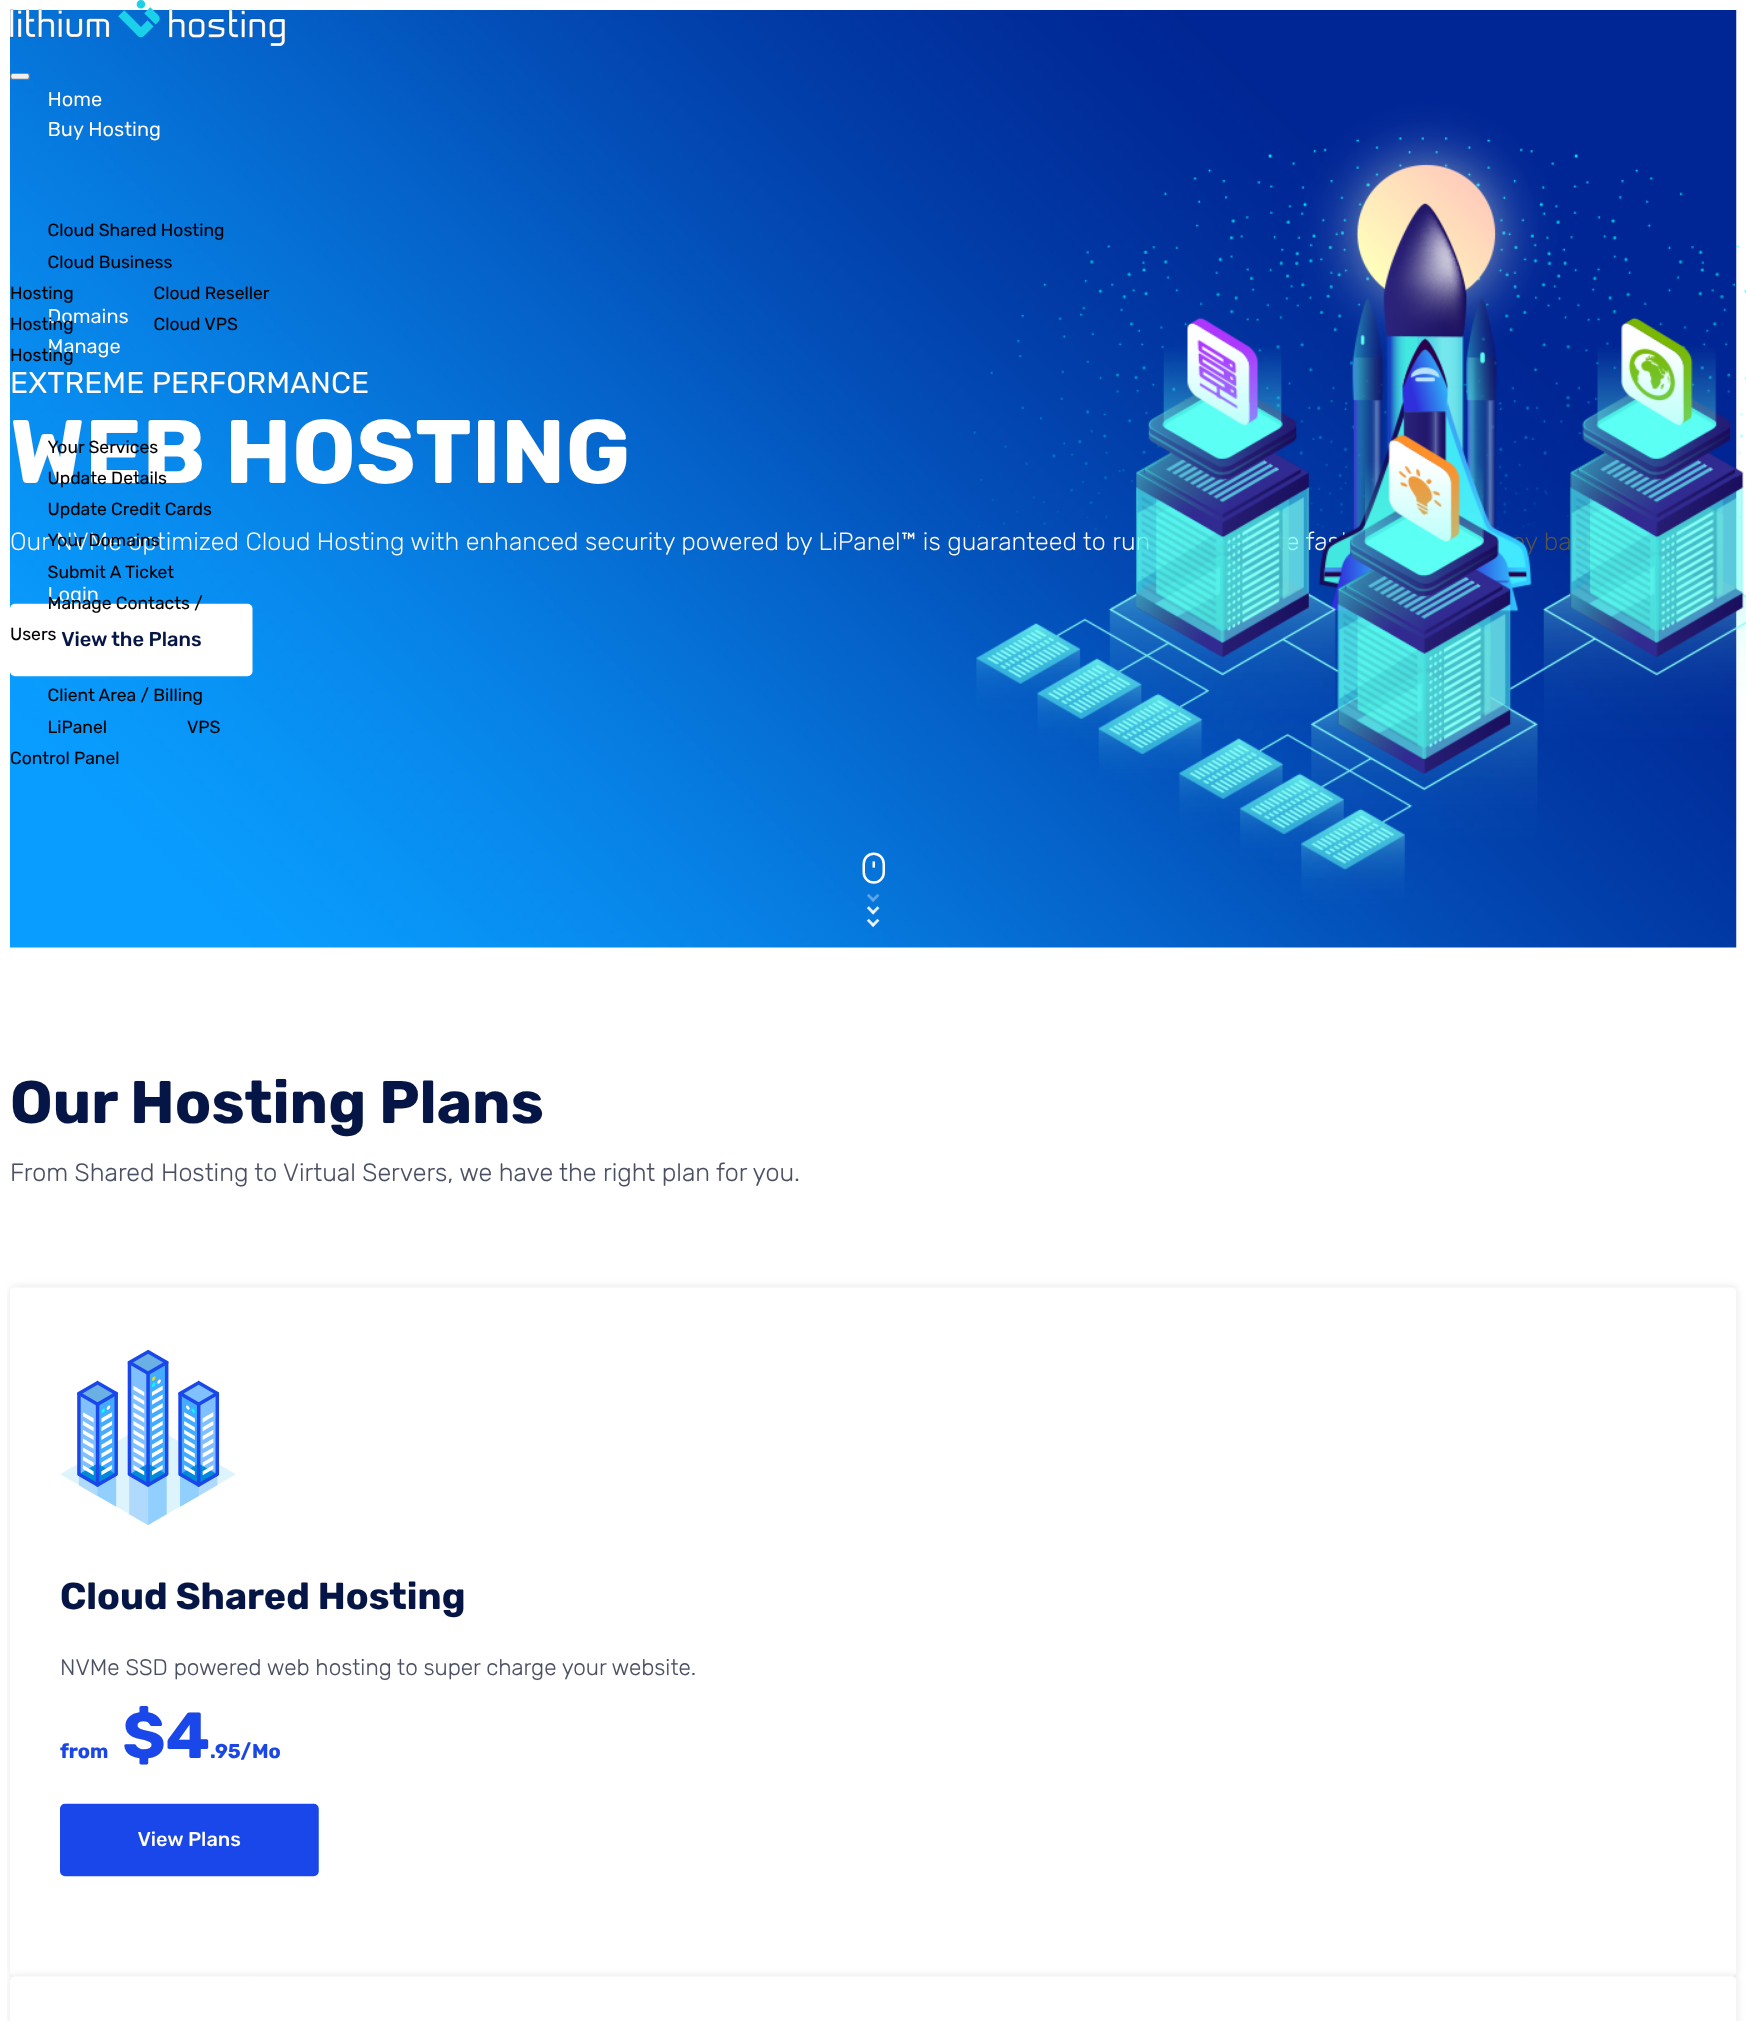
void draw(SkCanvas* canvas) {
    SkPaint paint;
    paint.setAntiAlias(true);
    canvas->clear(0xFFFFFFFF);
    canvas->drawImageRect(SkImages::DeferredFromEncodedData(SkData::MakeFromFileName("img1.png")), SkRect::MakeXYWH(7, 0, 1739, 2021), SkSamplingOptions());
}
